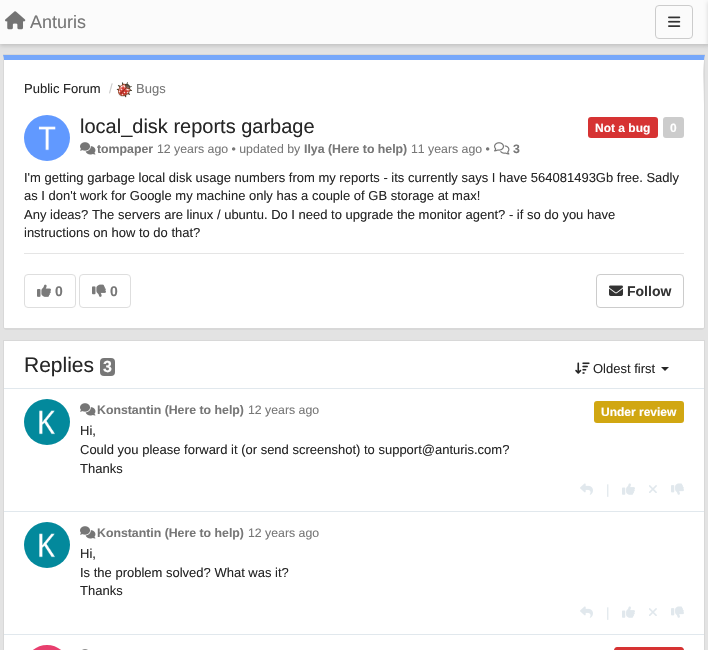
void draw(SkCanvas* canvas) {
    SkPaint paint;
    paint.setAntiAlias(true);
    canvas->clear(0xFFE3E3E3);
    paint.setColor(0x26000000);
    paint.setMaskFilter(SkMaskFilter::MakeBlur(kNormal_SkBlurStyle, 2));
    canvas->drawRect(SkRect::MakeXYWH(0, 2, 708, 44), paint);
    paint.setMaskFilter(nullptr);
    paint.setColor(0xFFFBFBFB);
    canvas->drawRect(SkRect::MakeXYWH(0, 0, 708, 44), paint);
    canvas->drawImageRect(SkImages::DeferredFromEncodedData(SkData::MakeFromFileName("img1.png")), SkRect::MakeXYWH(5, 11, 21, 19), SkSamplingOptions());
    SkFont font1(fontMgr->matchFamilyStyle("Liberation Sans", SkFontStyle::Normal()), 18);
    font1.setSubpixel(true);
    paint.setColor(0xFF777777);
    canvas->drawString("Anturis", 30, 28, font1, paint);
    paint.setStyle(SkPaint::kStroke_Style);
    paint.setStrokeWidth(1);
    paint.setColor(0xFFCCCCCC);
    canvas->drawRoundRect(SkRect::MakeXYWH(655.5f, 5.5f, 37, 33), 3.5f, 3.5f, paint);
    canvas->drawImageRect(SkImages::DeferredFromEncodedData(SkData::MakeFromFileName("img2.png")), SkRect::MakeXYWH(668, 16, 13, 11), SkSamplingOptions());
    paint.setStyle(SkPaint::kFill_Style);
    paint.setColor(0x26000000);
    paint.setMaskFilter(SkMaskFilter::MakeBlur(kNormal_SkBlurStyle, 2));
    canvas->drawRect(SkRect::MakeXYWH(708, 2, 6, 44), paint);
    paint.setMaskFilter(nullptr);
    paint.setColor(0xFFD8D8D8);
    canvas->drawRect(SkRect::MakeXYWH(3, 54, 702, 1), paint);
    paint.setColor(0xFFFFFFFF);
    canvas->drawPath(SkPathBuilder().moveTo(4, 60).lineTo(704, 60).lineTo(704, 327).cubicTo(704, 328, 703, 328, 702, 328).lineTo(6, 328).cubicTo(5, 328, 4, 328, 4, 327).close().detach(), paint);
    paint.setColor(0xFF76A7FA);
    canvas->drawPath(SkPathBuilder().moveTo(3, 55).lineTo(4, 60).lineTo(704, 60).lineTo(705, 55).close().detach(), paint);
    paint.setColor(0xFFD8D8D8);
    canvas->drawPath(SkPathBuilder().moveTo(705, 55).cubicTo(702, 72, 704, 78, 704, 104).lineTo(704, 328).lineTo(704, 329).lineTo(705, 327).close().detach(), paint);
    canvas->drawPath(SkPathBuilder().moveTo(6, 330).lineTo(702, 330).lineTo(704, 329).lineTo(704, 328).lineTo(702, 328).lineTo(6, 328).lineTo(4, 328).lineTo(4, 329).close().detach(), paint);
    canvas->drawPath(SkPathBuilder().moveTo(4, 60).lineTo(3, 55).lineTo(3, 327).lineTo(4, 329).lineTo(4, 327).close().detach(), paint);
    SkFont font2(fontMgr->matchFamilyStyle("Liberation Sans", SkFontStyle::Normal()), 13);
    font2.setSubpixel(true);
    paint.setColor(0xFF262626);
    canvas->drawString("Public Forum", 24, 93, font2, paint);
    paint.setColor(0xFFCCCCCC);
    canvas->drawString("/", 109, 93, font2, paint);
    canvas->drawImageRect(SkImages::DeferredFromEncodedData(SkData::MakeFromFileName("img3.png")), SkRect::MakeXYWH(116, 82, 16, 16), SkSamplingOptions());
    paint.setColor(0xFF777777);
    canvas->drawString("Bugs", 136, 93, font2, paint);
    paint.setColor(0xFF6199FF);
    canvas->drawCircle(47, 138, 23, paint);
    canvas->drawImageRect(SkImages::DeferredFromEncodedData(SkData::MakeFromFileName("img4.png")), SkRect::MakeXYWH(38, 126, 18, 25), SkSamplingOptions());
    SkFont font3(fontMgr->matchFamilyStyle("Liberation Sans", SkFontStyle::Normal()), 20);
    font3.setSubpixel(true);
    paint.setColor(0xFF262626);
    canvas->drawString("local_disk reports garbage", 80, 133, font3, paint);
    paint.setColor(0xFFD63333);
    canvas->drawRoundRect(SkRect::MakeXYWH(588, 117, 70, 21), 3, 3, paint);
    SkFont font4(fontMgr->matchFamilyStyle("Liberation Sans", SkFontStyle::Bold()), 12);
    font4.setSubpixel(true);
    paint.setColor(0xFFFFFFFF);
    canvas->drawString("Not a bug", 595, 132, font4, paint);
    paint.setColor(0xFFCCCCCC);
    canvas->drawRoundRect(SkRect::MakeXYWH(663, 117, 21, 21), 3, 3, paint);
    paint.setColor(0xFFFFFFFF);
    canvas->drawString("0", 670, 132, font4, paint);
    canvas->drawImageRect(SkImages::DeferredFromEncodedData(SkData::MakeFromFileName("img5.png")), SkRect::MakeXYWH(80, 142, 16, 13), SkSamplingOptions());
    SkFont font5(fontMgr->matchFamilyStyle("Liberation Sans", SkFontStyle::Bold()), 12.3f);
    font5.setSubpixel(true);
    paint.setColor(0xFF777777);
    canvas->drawString("tompaper", 97, 153, font5, paint);
    SkFont font6(fontMgr->matchFamilyStyle("Liberation Sans", SkFontStyle::Normal()), 12.3f);
    font6.setSubpixel(true);
    canvas->drawString("12 years ago • updated by", 157, 153, font6, paint);
    canvas->drawString("Ilya (Here to help)", 304, 153, font5, paint);
    canvas->drawString("11 years ago •", 411, 153, font6, paint);
    canvas->drawImageRect(SkImages::DeferredFromEncodedData(SkData::MakeFromFileName("img6.png")), SkRect::MakeXYWH(494, 142, 16, 13), SkSamplingOptions());
    canvas->drawString("3", 513, 153, font5, paint);
    paint.setColor(0xFF262626);
    canvas->drawString("I'm getting garbage local disk usage numbers from my reports - its currently says I have 564081493Gb free. Sadly", 24, 182, font2, paint);
    canvas->drawString("as I don't work for Google my machine only has a couple of GB storage at max!", 24, 200, font2, paint);
    canvas->drawString("Any ideas? The servers are linux / ubuntu. Do I need to upgrade the monitor agent? - if so do you have", 24, 219, font2, paint);
    canvas->drawString("instructions on how to do that?", 24, 237, font2, paint);
    paint.setColor(0xFFE5E5E5);
    canvas->drawRect(SkRect::MakeXYWH(24, 253, 660, 1), paint);
    paint.setStyle(SkPaint::kStroke_Style);
    paint.setColor(0xFFDEDEDE);
    canvas->drawRoundRect(SkRect::MakeXYWH(24.5f, 274.5f, 51, 33), 3.5f, 3.5f, paint);
    canvas->drawImageRect(SkImages::DeferredFromEncodedData(SkData::MakeFromFileName("img7.png")), SkRect::MakeXYWH(37, 284, 14, 13), SkSamplingOptions());
    SkFont font7(fontMgr->matchFamilyStyle("Liberation Sans", SkFontStyle::Bold()), 14);
    font7.setSubpixel(true);
    paint.setStyle(SkPaint::kFill_Style);
    paint.setColor(0xFF777777);
    canvas->drawString("0", 55, 296, font7, paint);
    paint.setStyle(SkPaint::kStroke_Style);
    paint.setColor(0xFFDEDEDE);
    canvas->drawRoundRect(SkRect::MakeXYWH(79.5f, 274.5f, 51, 33), 3.5f, 3.5f, paint);
    canvas->drawImageRect(SkImages::DeferredFromEncodedData(SkData::MakeFromFileName("img8.png")), SkRect::MakeXYWH(92, 284, 14, 13), SkSamplingOptions());
    paint.setStyle(SkPaint::kFill_Style);
    paint.setColor(0xFF777777);
    canvas->drawString("0", 110, 296, font7, paint);
    paint.setStyle(SkPaint::kStroke_Style);
    paint.setColor(0xFFCCCCCC);
    canvas->drawRoundRect(SkRect::MakeXYWH(596.5f, 274.5f, 87, 33), 3.5f, 3.5f, paint);
    canvas->drawImageRect(SkImages::DeferredFromEncodedData(SkData::MakeFromFileName("img9.png")), SkRect::MakeXYWH(609, 285, 14, 11), SkSamplingOptions());
    paint.setStyle(SkPaint::kFill_Style);
    paint.setColor(0xFF333333);
    canvas->drawString("Follow", 627, 296, font7, paint);
    paint.setColor(0xFFD8D8D8);
    canvas->drawRect(SkRect::MakeXYWH(3, 340, 702, 1), paint);
    paint.setColor(0xFFFFFFFF);
    canvas->drawRect(SkRect::MakeXYWH(4, 341, 700, 309), paint);
    paint.setColor(0xFFD8D8D8);
    canvas->drawPath(SkPathBuilder(SkPathFillType::kEvenOdd).moveTo(3, 341).lineTo(705, 341).lineTo(705, 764).cubicTo(705, 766, 704, 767, 702, 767).lineTo(6, 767).cubicTo(4, 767, 3, 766, 3, 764).close().moveTo(4, 341).lineTo(704, 341).lineTo(704, 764).cubicTo(704, 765, 703, 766, 702, 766).lineTo(6, 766).cubicTo(5, 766, 4, 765, 4, 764).close().detach(), paint);
    SkFont font8(fontMgr->matchFamilyStyle("Liberation Sans", SkFontStyle::Normal()), 21);
    font8.setSubpixel(true);
    paint.setColor(0xFF262626);
    canvas->drawString("Replies", 24, 372, font8, paint);
    paint.setColor(0xFF777777);
    canvas->drawRoundRect(SkRect::MakeXYWH(100, 358, 15, 18), 4, 4, paint);
    SkFont font9(fontMgr->matchFamilyStyle("Liberation Sans", SkFontStyle::Bold()), 16);
    font9.setSubpixel(true);
    paint.setColor(0xFFFFFFFF);
    canvas->drawString("3", 103, 372, font9, paint);
    canvas->drawImageRect(SkImages::DeferredFromEncodedData(SkData::MakeFromFileName("img10.png")), SkRect::MakeXYWH(575, 362, 15, 12), SkSamplingOptions());
    paint.setColor(0xFF262626);
    canvas->drawString("Oldest first", 593, 373, font2, paint);
    canvas->drawPath(SkPathBuilder().moveTo(661, 367).lineTo(669, 367).lineTo(665, 371).close().detach(), paint);
    paint.setColor(0xFFE1E8ED);
    canvas->drawRect(SkRect::MakeXYWH(4, 388, 700, 1), paint);
    canvas->drawRect(SkRect::MakeXYWH(4, 511, 700, 1), paint);
    paint.setColor(0xFF03899C);
    canvas->drawCircle(47, 422, 23, paint);
    canvas->drawImageRect(SkImages::DeferredFromEncodedData(SkData::MakeFromFileName("img11.png")), SkRect::MakeXYWH(39, 410, 16, 25), SkSamplingOptions());
    canvas->drawImageRect(SkImages::DeferredFromEncodedData(SkData::MakeFromFileName("img5.png")), SkRect::MakeXYWH(80, 403, 16, 13), SkSamplingOptions());
    paint.setColor(0xFF777777);
    canvas->drawString("Konstantin (Here to help)", 97, 414, font5, paint);
    canvas->drawString("12 years ago", 248, 414, font6, paint);
    paint.setColor(0xFFD1A712);
    canvas->drawRoundRect(SkRect::MakeXYWH(594, 401, 90, 22), 3, 3, paint);
    paint.setColor(0xFFFFFFFF);
    canvas->drawString("Under review", 601, 416, font4, paint);
    paint.setColor(0xFF262626);
    canvas->drawString("Hi,", 80, 435, font2, paint);
    canvas->drawString("Could you please forward it (or send screenshot) to support@anturis.com?", 80, 454, font2, paint);
    canvas->drawString("Thanks", 80, 473, font2, paint);
    canvas->drawImageRect(SkImages::DeferredFromEncodedData(SkData::MakeFromFileName("img12.png")), SkRect::MakeXYWH(580, 483, 13, 12), SkSamplingOptions());
    paint.setColor(0xFFE1E8ED);
    canvas->drawString("|", 606, 494, font2, paint);
    canvas->drawImageRect(SkImages::DeferredFromEncodedData(SkData::MakeFromFileName("img13.png")), SkRect::MakeXYWH(622, 483, 13, 12), SkSamplingOptions());
    canvas->drawImageRect(SkImages::DeferredFromEncodedData(SkData::MakeFromFileName("img14.png")), SkRect::MakeXYWH(649, 485, 8, 8), SkSamplingOptions());
    canvas->drawImageRect(SkImages::DeferredFromEncodedData(SkData::MakeFromFileName("img15.png")), SkRect::MakeXYWH(671, 483, 13, 12), SkSamplingOptions());
    canvas->drawRect(SkRect::MakeXYWH(4, 634, 700, 1), paint);
    paint.setColor(0xFF03899C);
    canvas->drawCircle(47, 545, 23, paint);
    canvas->drawImageRect(SkImages::DeferredFromEncodedData(SkData::MakeFromFileName("img16.png")), SkRect::MakeXYWH(39, 533, 16, 25), SkSamplingOptions());
    canvas->drawImageRect(SkImages::DeferredFromEncodedData(SkData::MakeFromFileName("img5.png")), SkRect::MakeXYWH(80, 526, 16, 13), SkSamplingOptions());
    paint.setColor(0xFF777777);
    canvas->drawString("Konstantin (Here to help)", 97, 537, font5, paint);
    canvas->drawString("12 years ago", 248, 537, font6, paint);
    paint.setColor(0xFF262626);
    canvas->drawString("Hi,", 80, 558, font2, paint);
    canvas->drawString("Is the problem solved? What was it?", 80, 577, font2, paint);
    canvas->drawString("Thanks", 80, 595, font2, paint);
    canvas->drawImageRect(SkImages::DeferredFromEncodedData(SkData::MakeFromFileName("img12.png")), SkRect::MakeXYWH(580, 606, 13, 12), SkSamplingOptions());
    paint.setColor(0xFFE1E8ED);
    canvas->drawString("|", 606, 617, font2, paint);
    canvas->drawImageRect(SkImages::DeferredFromEncodedData(SkData::MakeFromFileName("img13.png")), SkRect::MakeXYWH(622, 606, 13, 12), SkSamplingOptions());
    canvas->drawImageRect(SkImages::DeferredFromEncodedData(SkData::MakeFromFileName("img14.png")), SkRect::MakeXYWH(649, 608, 8, 8), SkSamplingOptions());
    canvas->drawImageRect(SkImages::DeferredFromEncodedData(SkData::MakeFromFileName("img15.png")), SkRect::MakeXYWH(671, 606, 13, 12), SkSamplingOptions());
    paint.setColor(0xFFE83F6E);
    canvas->drawPath(SkPathBuilder().moveTo(47, 645).cubicTo(59.5f, 645, 70, 655.5f, 70, 668).lineTo(70, 650).lineTo(24, 650).lineTo(24, 668).cubicTo(24, 655.5f, 34.5f, 645, 47, 645).close().detach(), paint);
    canvas->drawImageRect(SkImages::DeferredFromEncodedData(SkData::MakeFromFileName("img17.png")), SkRect::MakeXYWH(82, 649, 6, 1), SkSamplingOptions());
    paint.setColor(0xFFD63333);
    canvas->drawPath(SkPathBuilder().moveTo(617, 647).lineTo(681, 647).cubicTo(682.5f, 647, 684, 648.5f, 684, 650).lineTo(614, 650).cubicTo(614, 648.5f, 615.5f, 647, 617, 647).close().detach(), paint);
}
